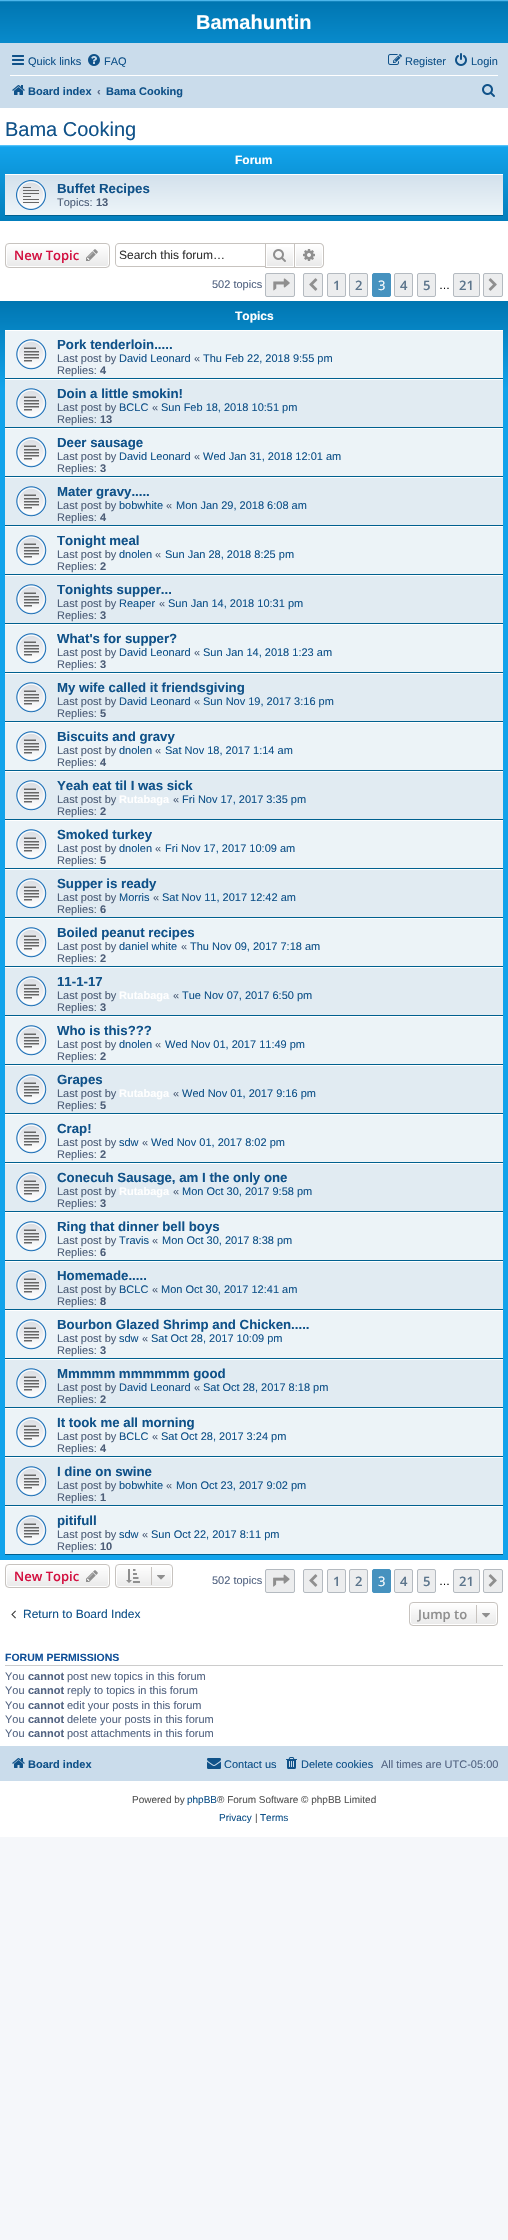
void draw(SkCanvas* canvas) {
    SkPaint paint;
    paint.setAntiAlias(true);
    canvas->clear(0xFFF5F7FA);
    paint.setColor(0xFFFFFFFF);
    canvas->drawRect(SkRect::MakeXYWH(0, 108, 508, 1729), paint);
    {
        const SkColor colors[] = {0xFF6ACEFF, 0xFF0076B1, 0xFF12A3EB};
        const float stops[] = {0, 0.02f, 1};
        const SkPoint ends[] = {{254, 0}, {254, 92}};
        paint.setShader(SkGradientShader::MakeLinear(ends, colors, stops, 3, SkTileMode::kClamp));
        paint.setAlpha(255);
    }
    canvas->drawRect(SkRect::MakeXYWH(0, 0, 508, 43), paint);
    SkFont font1(fontMgr->matchFamilyStyle("Liberation Sans", SkFontStyle::Bold()), 20);
    font1.setSubpixel(true);
    paint.setShader(nullptr);
    paint.setColor(0xFFFFFFFF);
    canvas->drawString("Bamahuntin", 196, 29, font1, paint);
    paint.setColor(0xFFCADCEB);
    canvas->drawRect(SkRect::MakeXYWH(0, 43, 508, 65), paint);
    canvas->drawImageRect(SkImages::DeferredFromEncodedData(SkData::MakeFromFileName("img1.png")), SkRect::MakeXYWH(12, 55, 12, 10), SkSamplingOptions());
    SkFont font2(fontMgr->matchFamilyStyle("Liberation Sans", SkFontStyle::Normal()), 11);
    font2.setSubpixel(true);
    paint.setColor(0xFF105289);
    canvas->drawString("Quick links", 28, 65, font2, paint);
    canvas->drawImageRect(SkImages::DeferredFromEncodedData(SkData::MakeFromFileName("img2.png")), SkRect::MakeXYWH(88, 54, 12, 12), SkSamplingOptions());
    canvas->drawString("FAQ", 104, 65, font2, paint);
    canvas->drawImageRect(SkImages::DeferredFromEncodedData(SkData::MakeFromFileName("img3.png")), SkRect::MakeXYWH(388, 54, 14, 11), SkSamplingOptions());
    canvas->drawString("Register", 405, 65, font2, paint);
    canvas->drawImageRect(SkImages::DeferredFromEncodedData(SkData::MakeFromFileName("img4.png")), SkRect::MakeXYWH(455, 53, 12, 13), SkSamplingOptions());
    canvas->drawString("Login", 471, 65, font2, paint);
    paint.setColor(0xFFFFFFFF);
    canvas->drawRect(SkRect::MakeXYWH(10, 75, 488, 1), paint);
    canvas->drawImageRect(SkImages::DeferredFromEncodedData(SkData::MakeFromFileName("img5.png")), SkRect::MakeXYWH(12, 85, 13, 10), SkSamplingOptions());
    SkFont font3(fontMgr->matchFamilyStyle("Liberation Sans", SkFontStyle::Bold()), 11);
    font3.setSubpixel(true);
    paint.setColor(0xFF105289);
    canvas->drawString("Board index", 28, 95, font3, paint);
    paint.setColor(0xFF536482);
    canvas->drawString("‹", 97, 95, font3, paint);
    paint.setColor(0xFF105289);
    canvas->drawString("Bama Cooking", 106, 95, font3, paint);
    canvas->drawImageRect(SkImages::DeferredFromEncodedData(SkData::MakeFromFileName("img6.png")), SkRect::MakeXYWH(482, 84, 13, 13), SkSamplingOptions());
    SkFont font4(fontMgr->matchFamilyStyle("Liberation Sans", SkFontStyle::Normal()), 20);
    font4.setSubpixel(true);
    canvas->drawString("Bama Cooking", 5, 136, font4, paint);
    {
        const SkColor colors[] = {0xFF6ACEFF, 0xFF12A3EB, 0xFF0076B1};
        const float stops[] = {0, 0.02f, 1};
        const SkPoint ends[] = {{254, 145}, {254, 237}};
        paint.setShader(SkGradientShader::MakeLinear(ends, colors, stops, 3, SkTileMode::kClamp));
        paint.setAlpha(255);
    }
    canvas->drawRect(SkRect::MakeXYWH(0, 145, 508, 76), paint);
    SkFont font5(fontMgr->matchFamilyStyle("Liberation Sans", SkFontStyle::Bold()), 12);
    font5.setSubpixel(true);
    paint.setShader(nullptr);
    paint.setColor(0xFFFFFFFF);
    canvas->drawString("Forum", 235, 164, font5, paint);
    {
        const SkColor colors[] = {0xFFD2E0EB, 0xFFEEF5F9};
        const float stops[] = {0, 1};
        const SkPoint ends[] = {{254, 174}, {254, 216}};
        paint.setShader(SkGradientShader::MakeLinear(ends, colors, stops, 2, SkTileMode::kClamp));
        paint.setAlpha(255);
    }
    canvas->drawRect(SkRect::MakeXYWH(5, 175, 498, 40), paint);
    paint.setShader(nullptr);
    paint.setColor(0xFFFFFFFF);
    canvas->drawRect(SkRect::MakeXYWH(5, 174, 498, 1), paint);
    paint.setColor(0xFF00608F);
    canvas->drawRect(SkRect::MakeXYWH(5, 215, 498, 1), paint);
    canvas->drawImageRect(SkImages::DeferredFromEncodedData(SkData::MakeFromFileName("img7.png")), SkRect::MakeXYWH(16, 180, 30, 30), SkSamplingOptions());
    SkFont font6(fontMgr->matchFamilyStyle("Liberation Sans", SkFontStyle::Bold()), 13.25f);
    font6.setSubpixel(true);
    paint.setColor(0xFF105289);
    canvas->drawString("Buffet Recipes", 57, 193, font6, paint);
    paint.setColor(0xFF4C5D77);
    canvas->drawString("Topics:", 57, 206, font2, paint);
    canvas->drawString("13", 96, 206, font3, paint);
    canvas->save();
    canvas->clipPath(SkPathBuilder().moveTo(9, 243).lineTo(106, 243).cubicTo(108, 243, 110, 245, 110, 247).lineTo(110, 264).cubicTo(110, 266, 108, 268, 106, 268).lineTo(9, 268).cubicTo(7, 268, 5, 266, 5, 264).lineTo(5, 247).cubicTo(5, 245, 7, 243, 9, 243).close().detach(), true);
    {
        const SkColor colors[] = {0xFFFFFFFF, 0xFFE9E9E9};
        const float stops[] = {0, 1};
        const SkPoint ends[] = {{58, 244}, {58, 267}};
        paint.setShader(SkGradientShader::MakeLinear(ends, colors, stops, 2, SkTileMode::kClamp));
        paint.setAlpha(255);
    }
    canvas->drawRect(SkRect::MakeXYWH(5, 244, 105, 23), paint);
    canvas->restore();
    paint.setStyle(SkPaint::kStroke_Style);
    paint.setStrokeWidth(1);
    paint.setShader(nullptr);
    paint.setColor(0xFFFFFFFF);
    canvas->drawRoundRect(SkRect::MakeXYWH(6.5f, 244.5f, 102, 22), 2.5f, 2.5f, paint);
    paint.setColor(0xFFC7C3BF);
    canvas->drawRoundRect(SkRect::MakeXYWH(5.5f, 243.5f, 104, 24), 3.5f, 3.5f, paint);
    SkFont font7(fontMgr->matchFamilyStyle("Open Sans", SkFontStyle(600, SkFontStyle::kNormal_Width, SkFontStyle::kUpright_Slant)), 13);
    font7.setSubpixel(true);
    paint.setStyle(SkPaint::kFill_Style);
    paint.setColor(0xFFD31141);
    canvas->drawString("New Topic", 14, 260, font7, paint);
    canvas->drawImageRect(SkImages::DeferredFromEncodedData(SkData::MakeFromFileName("img8.png")), SkRect::MakeXYWH(86, 249, 12, 12), SkSamplingOptions());
    paint.setColor(0xFFC7C3BF);
    canvas->drawPath(SkPathBuilder(SkPathFillType::kEvenOdd).moveTo(119, 243).lineTo(265, 243).lineTo(265, 267).lineTo(119, 267).cubicTo(117, 267, 115, 265, 115, 263).lineTo(115, 247).cubicTo(115, 245, 117, 243, 119, 243).close().moveTo(119, 244).lineTo(265, 244).lineTo(265, 266).lineTo(119, 266).cubicTo(117, 266, 116, 265, 116, 263).lineTo(116, 247).cubicTo(116, 245, 117, 244, 119, 244).close().detach(), paint);
    SkFont font8(fontMgr->matchFamilyStyle("Liberation Sans", SkFontStyle::Normal()), 12);
    font8.setSubpixel(true);
    paint.setColor(0xFF333333);
    canvas->drawString("Search this forum…", 119, 259, font8, paint);
    {
        const SkColor colors[] = {0xFFFFFFFF, 0xFFE9E9E9};
        const float stops[] = {0, 1};
        const SkPoint ends[] = {{280, 244}, {280, 267}};
        paint.setShader(SkGradientShader::MakeLinear(ends, colors, stops, 2, SkTileMode::kClamp));
        paint.setAlpha(255);
    }
    canvas->drawRect(SkRect::MakeXYWH(267, 247, 26, 19), paint);
    paint.setStyle(SkPaint::kStroke_Style);
    paint.setShader(nullptr);
    paint.setColor(0xFFC7C3BF);
    canvas->drawRect(SkRect::MakeXYWH(265.5f, 243.5f, 29, 24), paint);
    canvas->drawImageRect(SkImages::DeferredFromEncodedData(SkData::MakeFromFileName("img9.png")), SkRect::MakeXYWH(273, 249, 13, 13), SkSamplingOptions());
    paint.setStyle(SkPaint::kFill_Style);
    {
        const SkColor colors[] = {0xFFFFFFFF, 0xFFE9E9E9};
        const float stops[] = {0, 1};
        const SkPoint ends[] = {{309, 244}, {309, 267}};
        paint.setShader(SkGradientShader::MakeLinear(ends, colors, stops, 2, SkTileMode::kClamp));
        paint.setAlpha(255);
    }
    canvas->drawPath(SkPathBuilder().moveTo(295.5f, 244.5f).lineTo(320, 244.5f).cubicTo(321.5f, 244.5f, 322.5f, 245.5f, 322.5f, 247).lineTo(322.5f, 264).cubicTo(322.5f, 265.5f, 321.5f, 266.5f, 320, 266.5f).lineTo(295.5f, 266.5f).close().detach(), paint);
    paint.setStyle(SkPaint::kStroke_Style);
    paint.setShader(nullptr);
    paint.setColor(0xFFFFFFFF);
    canvas->drawPath(SkPathBuilder().moveTo(295.5f, 244.5f).lineTo(320, 244.5f).cubicTo(321.5f, 244.5f, 322.5f, 245.5f, 322.5f, 247).lineTo(322.5f, 264).cubicTo(322.5f, 265.5f, 321.5f, 266.5f, 320, 266.5f).lineTo(295.5f, 266.5f).close().detach(), paint);
    paint.setStyle(SkPaint::kFill_Style);
    paint.setColor(0xFFC7C3BF);
    canvas->drawPath(SkPathBuilder(SkPathFillType::kEvenOdd).moveTo(295, 243).lineTo(320, 243).cubicTo(322, 243, 324, 245, 324, 247).lineTo(324, 264).cubicTo(324, 266, 322, 268, 320, 268).lineTo(295, 268).close().moveTo(295, 244).lineTo(320, 244).cubicTo(321.5f, 244, 323, 245.5f, 323, 247).lineTo(323, 264).cubicTo(323, 265.5f, 321.5f, 267, 320, 267).lineTo(295, 267).close().detach(), paint);
    canvas->drawImageRect(SkImages::DeferredFromEncodedData(SkData::MakeFromFileName("img10.png")), SkRect::MakeXYWH(303, 249, 12, 12), SkSamplingOptions());
    paint.setColor(0xFF536482);
    canvas->drawString("502 topics", 212, 288, font2, paint);
    paint.setColor(0xFFECEDEE);
    canvas->drawRoundRect(SkRect::MakeXYWH(265.5f, 273.5f, 29, 23), 1.5f, 1.5f, paint);
    paint.setStyle(SkPaint::kStroke_Style);
    paint.setColor(0xFFB4BAC0);
    canvas->drawRoundRect(SkRect::MakeXYWH(265.5f, 273.5f, 29, 23), 1.5f, 1.5f, paint);
    canvas->drawImageRect(SkImages::DeferredFromEncodedData(SkData::MakeFromFileName("img11.png")), SkRect::MakeXYWH(273, 278, 17, 13), SkSamplingOptions());
    paint.setStyle(SkPaint::kFill_Style);
    paint.setColor(0xFFECEDEE);
    canvas->drawRoundRect(SkRect::MakeXYWH(303.5f, 273.5f, 19, 23), 1.5f, 1.5f, paint);
    paint.setStyle(SkPaint::kStroke_Style);
    paint.setColor(0xFFB4BAC0);
    canvas->drawRoundRect(SkRect::MakeXYWH(303.5f, 273.5f, 19, 23), 1.5f, 1.5f, paint);
    canvas->drawImageRect(SkImages::DeferredFromEncodedData(SkData::MakeFromFileName("img12.png")), SkRect::MakeXYWH(309, 278, 9, 13), SkSamplingOptions());
    paint.setStyle(SkPaint::kFill_Style);
    paint.setColor(0xFFECEDEE);
    canvas->drawRoundRect(SkRect::MakeXYWH(327.5f, 273.5f, 18, 23), 1.5f, 1.5f, paint);
    paint.setStyle(SkPaint::kStroke_Style);
    paint.setColor(0xFFB4BAC0);
    canvas->drawRoundRect(SkRect::MakeXYWH(327.5f, 273.5f, 18, 23), 1.5f, 1.5f, paint);
    paint.setStyle(SkPaint::kFill_Style);
    paint.setColor(0xFF5C758C);
    canvas->drawString("1", 333, 290, font7, paint);
    paint.setColor(0xFFECEDEE);
    canvas->drawRoundRect(SkRect::MakeXYWH(349.5f, 273.5f, 18, 23), 1.5f, 1.5f, paint);
    paint.setStyle(SkPaint::kStroke_Style);
    paint.setColor(0xFFB4BAC0);
    canvas->drawRoundRect(SkRect::MakeXYWH(349.5f, 273.5f, 18, 23), 1.5f, 1.5f, paint);
    paint.setStyle(SkPaint::kFill_Style);
    paint.setColor(0xFF5C758C);
    canvas->drawString("2", 355, 290, font7, paint);
    paint.setColor(0xFF4692BF);
    canvas->drawRoundRect(SkRect::MakeXYWH(372.5f, 273.5f, 18, 23), 1.5f, 1.5f, paint);
    paint.setStyle(SkPaint::kStroke_Style);
    canvas->drawRoundRect(SkRect::MakeXYWH(372.5f, 273.5f, 18, 23), 1.5f, 1.5f, paint);
    SkFont font9(fontMgr->matchFamilyStyle("Open Sans", SkFontStyle::Normal()), 13);
    font9.setSubpixel(true);
    paint.setStyle(SkPaint::kFill_Style);
    paint.setColor(0xFFFFFFFF);
    canvas->drawString("3", 378, 290, font9, paint);
    paint.setColor(0xFFECEDEE);
    canvas->drawRoundRect(SkRect::MakeXYWH(394.5f, 273.5f, 18, 23), 1.5f, 1.5f, paint);
    paint.setStyle(SkPaint::kStroke_Style);
    paint.setColor(0xFFB4BAC0);
    canvas->drawRoundRect(SkRect::MakeXYWH(394.5f, 273.5f, 18, 23), 1.5f, 1.5f, paint);
    paint.setStyle(SkPaint::kFill_Style);
    paint.setColor(0xFF5C758C);
    canvas->drawString("4", 400, 290, font7, paint);
    paint.setColor(0xFFECEDEE);
    canvas->drawRoundRect(SkRect::MakeXYWH(417.5f, 273.5f, 18, 23), 1.5f, 1.5f, paint);
    paint.setStyle(SkPaint::kStroke_Style);
    paint.setColor(0xFFB4BAC0);
    canvas->drawRoundRect(SkRect::MakeXYWH(417.5f, 273.5f, 18, 23), 1.5f, 1.5f, paint);
    paint.setStyle(SkPaint::kFill_Style);
    paint.setColor(0xFF5C758C);
    canvas->drawString("5", 423, 290, font7, paint);
    paint.setColor(0xFF000000);
    canvas->drawString("…", 439, 289, font2, paint);
    paint.setColor(0xFFECEDEE);
    canvas->drawRoundRect(SkRect::MakeXYWH(453.5f, 273.5f, 26, 23), 1.5f, 1.5f, paint);
    paint.setStyle(SkPaint::kStroke_Style);
    paint.setColor(0xFFB4BAC0);
    canvas->drawRoundRect(SkRect::MakeXYWH(453.5f, 273.5f, 26, 23), 1.5f, 1.5f, paint);
    paint.setStyle(SkPaint::kFill_Style);
    paint.setColor(0xFF5C758C);
    canvas->drawString("21", 459, 290, font7, paint);
    paint.setColor(0xFFECEDEE);
    canvas->drawRoundRect(SkRect::MakeXYWH(483.5f, 273.5f, 19, 23), 1.5f, 1.5f, paint);
    paint.setStyle(SkPaint::kStroke_Style);
    paint.setColor(0xFFB4BAC0);
    canvas->drawRoundRect(SkRect::MakeXYWH(483.5f, 273.5f, 19, 23), 1.5f, 1.5f, paint);
    canvas->drawImageRect(SkImages::DeferredFromEncodedData(SkData::MakeFromFileName("img13.png")), SkRect::MakeXYWH(488, 278, 9, 13), SkSamplingOptions());
    paint.setStyle(SkPaint::kFill_Style);
    {
        const SkColor colors[] = {0xFF6ACEFF, 0xFF0076B1, 0xFF12A3EB, 0xFF12A3EB};
        const float stops[] = {0, 0, 0.07f, 1};
        const SkPoint ends[] = {{254, 301}, {254, 1560}};
        paint.setShader(SkGradientShader::MakeLinear(ends, colors, stops, 4, SkTileMode::kClamp));
        paint.setAlpha(255);
    }
    canvas->drawRect(SkRect::MakeXYWH(0, 301, 508, 1259), paint);
    paint.setShader(nullptr);
    paint.setColor(0xFFFFFFFF);
    canvas->drawString("Topics", 235, 320, font5, paint);
    paint.setColor(0xFFECF3F7);
    canvas->drawRect(SkRect::MakeXYWH(5, 331, 498, 47), paint);
    paint.setColor(0xFFFFFFFF);
    canvas->drawRect(SkRect::MakeXYWH(5, 330, 498, 1), paint);
    paint.setColor(0xFF00608F);
    canvas->drawRect(SkRect::MakeXYWH(5, 378, 498, 1), paint);
    canvas->drawImageRect(SkImages::DeferredFromEncodedData(SkData::MakeFromFileName("img14.png")), SkRect::MakeXYWH(16, 339, 31, 31), SkSamplingOptions());
    paint.setColor(0xFF105289);
    canvas->drawString("Pork tenderloin.....", 57, 349, font6, paint);
    paint.setColor(0xFF4C5D77);
    canvas->drawString("Last post by", 57, 362, font2, paint);
    paint.setColor(0xFF105289);
    canvas->drawString("David Leonard", 119, 362, font2, paint);
    paint.setColor(0xFF4C5D77);
    canvas->drawString("«", 194, 362, font2, paint);
    paint.setColor(0xFF105289);
    canvas->drawString("Thu Feb 22, 2018 9:55 pm", 203, 362, font2, paint);
    paint.setColor(0xFF4C5D77);
    canvas->drawString("Replies:", 57, 374, font2, paint);
    canvas->drawString("4", 100, 374, font3, paint);
    paint.setColor(0xFFE1EBF2);
    canvas->drawRect(SkRect::MakeXYWH(5, 380, 498, 47), paint);
    paint.setColor(0xFFFFFFFF);
    canvas->drawRect(SkRect::MakeXYWH(5, 379, 498, 1), paint);
    paint.setColor(0xFF00608F);
    canvas->drawRect(SkRect::MakeXYWH(5, 427, 498, 1), paint);
    canvas->drawImageRect(SkImages::DeferredFromEncodedData(SkData::MakeFromFileName("img15.png")), SkRect::MakeXYWH(16, 388, 31, 31), SkSamplingOptions());
    paint.setColor(0xFF105289);
    canvas->drawString("Doin a little smokin!", 57, 398, font6, paint);
    paint.setColor(0xFF4C5D77);
    canvas->drawString("Last post by", 57, 411, font2, paint);
    paint.setColor(0xFF105289);
    canvas->drawString("BCLC", 119, 411, font2, paint);
    paint.setColor(0xFF4C5D77);
    canvas->drawString("«", 152, 411, font2, paint);
    paint.setColor(0xFF105289);
    canvas->drawString("Sun Feb 18, 2018 10:51 pm", 161, 411, font2, paint);
    paint.setColor(0xFF4C5D77);
    canvas->drawString("Replies:", 57, 423, font2, paint);
    canvas->drawString("13", 100, 423, font3, paint);
    paint.setColor(0xFFECF3F7);
    canvas->drawRect(SkRect::MakeXYWH(5, 429, 498, 47), paint);
    paint.setColor(0xFFFFFFFF);
    canvas->drawRect(SkRect::MakeXYWH(5, 428, 498, 1), paint);
    paint.setColor(0xFF00608F);
    canvas->drawRect(SkRect::MakeXYWH(5, 476, 498, 1), paint);
    canvas->drawImageRect(SkImages::DeferredFromEncodedData(SkData::MakeFromFileName("img14.png")), SkRect::MakeXYWH(16, 437, 31, 31), SkSamplingOptions());
    paint.setColor(0xFF105289);
    canvas->drawString("Deer sausage", 57, 447, font6, paint);
    paint.setColor(0xFF4C5D77);
    canvas->drawString("Last post by", 57, 460, font2, paint);
    paint.setColor(0xFF105289);
    canvas->drawString("David Leonard", 119, 460, font2, paint);
    paint.setColor(0xFF4C5D77);
    canvas->drawString("«", 194, 460, font2, paint);
    paint.setColor(0xFF105289);
    canvas->drawString("Wed Jan 31, 2018 12:01 am", 203, 460, font2, paint);
    paint.setColor(0xFF4C5D77);
    canvas->drawString("Replies:", 57, 472, font2, paint);
    canvas->drawString("3", 100, 472, font3, paint);
    paint.setColor(0xFFE1EBF2);
    canvas->drawRect(SkRect::MakeXYWH(5, 478, 498, 47), paint);
    paint.setColor(0xFFFFFFFF);
    canvas->drawRect(SkRect::MakeXYWH(5, 477, 498, 1), paint);
    paint.setColor(0xFF00608F);
    canvas->drawRect(SkRect::MakeXYWH(5, 525, 498, 1), paint);
    canvas->drawImageRect(SkImages::DeferredFromEncodedData(SkData::MakeFromFileName("img15.png")), SkRect::MakeXYWH(16, 486, 31, 31), SkSamplingOptions());
    paint.setColor(0xFF105289);
    canvas->drawString("Mater gravy.....", 57, 496, font6, paint);
    paint.setColor(0xFF4C5D77);
    canvas->drawString("Last post by", 57, 509, font2, paint);
    paint.setColor(0xFF105289);
    canvas->drawString("bobwhite", 119, 509, font2, paint);
    paint.setColor(0xFF4C5D77);
    canvas->drawString("«", 166, 509, font2, paint);
    paint.setColor(0xFF105289);
    canvas->drawString("Mon Jan 29, 2018 6:08 am", 176, 509, font2, paint);
    paint.setColor(0xFF4C5D77);
    canvas->drawString("Replies:", 57, 521, font2, paint);
    canvas->drawString("4", 100, 521, font3, paint);
    paint.setColor(0xFFECF3F7);
    canvas->drawRect(SkRect::MakeXYWH(5, 527, 498, 47), paint);
    paint.setColor(0xFFFFFFFF);
    canvas->drawRect(SkRect::MakeXYWH(5, 526, 498, 1), paint);
    paint.setColor(0xFF00608F);
    canvas->drawRect(SkRect::MakeXYWH(5, 574, 498, 1), paint);
    canvas->drawImageRect(SkImages::DeferredFromEncodedData(SkData::MakeFromFileName("img14.png")), SkRect::MakeXYWH(16, 535, 31, 31), SkSamplingOptions());
    paint.setColor(0xFF105289);
    canvas->drawString("Tonight meal", 57, 545, font6, paint);
    paint.setColor(0xFF4C5D77);
    canvas->drawString("Last post by", 57, 558, font2, paint);
    paint.setColor(0xFF105289);
    canvas->drawString("dnolen", 119, 558, font2, paint);
    paint.setColor(0xFF4C5D77);
    canvas->drawString("«", 155, 558, font2, paint);
    paint.setColor(0xFF105289);
    canvas->drawString("Sun Jan 28, 2018 8:25 pm", 165, 558, font2, paint);
    paint.setColor(0xFF4C5D77);
    canvas->drawString("Replies:", 57, 570, font2, paint);
    canvas->drawString("2", 100, 570, font3, paint);
    paint.setColor(0xFFE1EBF2);
    canvas->drawRect(SkRect::MakeXYWH(5, 576, 498, 47), paint);
    paint.setColor(0xFFFFFFFF);
    canvas->drawRect(SkRect::MakeXYWH(5, 575, 498, 1), paint);
    paint.setColor(0xFF00608F);
    canvas->drawRect(SkRect::MakeXYWH(5, 623, 498, 1), paint);
    canvas->drawImageRect(SkImages::DeferredFromEncodedData(SkData::MakeFromFileName("img15.png")), SkRect::MakeXYWH(16, 584, 31, 31), SkSamplingOptions());
    paint.setColor(0xFF105289);
    canvas->drawString("Tonights supper...", 57, 594, font6, paint);
    paint.setColor(0xFF4C5D77);
    canvas->drawString("Last post by", 57, 607, font2, paint);
    paint.setColor(0xFF105289);
    canvas->drawString("Reaper", 119, 607, font2, paint);
    paint.setColor(0xFF4C5D77);
    canvas->drawString("«", 159, 607, font2, paint);
    paint.setColor(0xFF105289);
    canvas->drawString("Sun Jan 14, 2018 10:31 pm", 168, 607, font2, paint);
    paint.setColor(0xFF4C5D77);
    canvas->drawString("Replies:", 57, 619, font2, paint);
    canvas->drawString("3", 100, 619, font3, paint);
    paint.setColor(0xFFECF3F7);
    canvas->drawRect(SkRect::MakeXYWH(5, 625, 498, 47), paint);
    paint.setColor(0xFFFFFFFF);
    canvas->drawRect(SkRect::MakeXYWH(5, 624, 498, 1), paint);
    paint.setColor(0xFF00608F);
    canvas->drawRect(SkRect::MakeXYWH(5, 672, 498, 1), paint);
    canvas->drawImageRect(SkImages::DeferredFromEncodedData(SkData::MakeFromFileName("img14.png")), SkRect::MakeXYWH(16, 633, 31, 31), SkSamplingOptions());
    paint.setColor(0xFF105289);
    canvas->drawString("What's for supper?", 57, 643, font6, paint);
    paint.setColor(0xFF4C5D77);
    canvas->drawString("Last post by", 57, 656, font2, paint);
    paint.setColor(0xFF105289);
    canvas->drawString("David Leonard", 119, 656, font2, paint);
    paint.setColor(0xFF4C5D77);
    canvas->drawString("«", 194, 656, font2, paint);
    paint.setColor(0xFF105289);
    canvas->drawString("Sun Jan 14, 2018 1:23 am", 203, 656, font2, paint);
    paint.setColor(0xFF4C5D77);
    canvas->drawString("Replies:", 57, 668, font2, paint);
    canvas->drawString("3", 100, 668, font3, paint);
    paint.setColor(0xFFE1EBF2);
    canvas->drawRect(SkRect::MakeXYWH(5, 674, 498, 47), paint);
    paint.setColor(0xFFFFFFFF);
    canvas->drawRect(SkRect::MakeXYWH(5, 673, 498, 1), paint);
    paint.setColor(0xFF00608F);
    canvas->drawRect(SkRect::MakeXYWH(5, 721, 498, 1), paint);
    canvas->drawImageRect(SkImages::DeferredFromEncodedData(SkData::MakeFromFileName("img15.png")), SkRect::MakeXYWH(16, 682, 31, 31), SkSamplingOptions());
    paint.setColor(0xFF105289);
    canvas->drawString("My wife called it friendsgiving", 57, 692, font6, paint);
    paint.setColor(0xFF4C5D77);
    canvas->drawString("Last post by", 57, 705, font2, paint);
    paint.setColor(0xFF105289);
    canvas->drawString("David Leonard", 119, 705, font2, paint);
    paint.setColor(0xFF4C5D77);
    canvas->drawString("«", 194, 705, font2, paint);
    paint.setColor(0xFF105289);
    canvas->drawString("Sun Nov 19, 2017 3:16 pm", 203, 705, font2, paint);
    paint.setColor(0xFF4C5D77);
    canvas->drawString("Replies:", 57, 717, font2, paint);
    canvas->drawString("5", 100, 717, font3, paint);
    paint.setColor(0xFFECF3F7);
    canvas->drawRect(SkRect::MakeXYWH(5, 723, 498, 47), paint);
    paint.setColor(0xFFFFFFFF);
    canvas->drawRect(SkRect::MakeXYWH(5, 722, 498, 1), paint);
    paint.setColor(0xFF00608F);
    canvas->drawRect(SkRect::MakeXYWH(5, 770, 498, 1), paint);
    canvas->drawImageRect(SkImages::DeferredFromEncodedData(SkData::MakeFromFileName("img14.png")), SkRect::MakeXYWH(16, 731, 31, 31), SkSamplingOptions());
    paint.setColor(0xFF105289);
    canvas->drawString("Biscuits and gravy", 57, 741, font6, paint);
    paint.setColor(0xFF4C5D77);
    canvas->drawString("Last post by", 57, 754, font2, paint);
    paint.setColor(0xFF105289);
    canvas->drawString("dnolen", 119, 754, font2, paint);
    paint.setColor(0xFF4C5D77);
    canvas->drawString("«", 155, 754, font2, paint);
    paint.setColor(0xFF105289);
    canvas->drawString("Sat Nov 18, 2017 1:14 am", 165, 754, font2, paint);
    paint.setColor(0xFF4C5D77);
    canvas->drawString("Replies:", 57, 766, font2, paint);
    canvas->drawString("4", 100, 766, font3, paint);
    paint.setColor(0xFFE1EBF2);
    canvas->drawRect(SkRect::MakeXYWH(5, 772, 498, 47), paint);
    paint.setColor(0xFFFFFFFF);
    canvas->drawRect(SkRect::MakeXYWH(5, 771, 498, 1), paint);
    paint.setColor(0xFF00608F);
    canvas->drawRect(SkRect::MakeXYWH(5, 819, 498, 1), paint);
    canvas->drawImageRect(SkImages::DeferredFromEncodedData(SkData::MakeFromFileName("img15.png")), SkRect::MakeXYWH(16, 780, 31, 31), SkSamplingOptions());
    paint.setColor(0xFF105289);
    canvas->drawString("Yeah eat til I was sick", 57, 790, font6, paint);
    paint.setColor(0xFF4C5D77);
    canvas->drawString("Last post by", 57, 803, font2, paint);
    paint.setColor(0xFFFFFFFF);
    canvas->drawString("Rutabaga", 119, 803, font3, paint);
    paint.setColor(0xFF4C5D77);
    canvas->drawString("«", 173, 803, font2, paint);
    paint.setColor(0xFF105289);
    canvas->drawString("Fri Nov 17, 2017 3:35 pm", 182, 803, font2, paint);
    paint.setColor(0xFF4C5D77);
    canvas->drawString("Replies:", 57, 815, font2, paint);
    canvas->drawString("2", 100, 815, font3, paint);
    paint.setColor(0xFFECF3F7);
    canvas->drawRect(SkRect::MakeXYWH(5, 821, 498, 47), paint);
    paint.setColor(0xFFFFFFFF);
    canvas->drawRect(SkRect::MakeXYWH(5, 820, 498, 1), paint);
    paint.setColor(0xFF00608F);
    canvas->drawRect(SkRect::MakeXYWH(5, 868, 498, 1), paint);
    canvas->drawImageRect(SkImages::DeferredFromEncodedData(SkData::MakeFromFileName("img14.png")), SkRect::MakeXYWH(16, 829, 31, 31), SkSamplingOptions());
    paint.setColor(0xFF105289);
    canvas->drawString("Smoked turkey", 57, 839, font6, paint);
    paint.setColor(0xFF4C5D77);
    canvas->drawString("Last post by", 57, 852, font2, paint);
    paint.setColor(0xFF105289);
    canvas->drawString("dnolen", 119, 852, font2, paint);
    paint.setColor(0xFF4C5D77);
    canvas->drawString("«", 155, 852, font2, paint);
    paint.setColor(0xFF105289);
    canvas->drawString("Fri Nov 17, 2017 10:09 am", 165, 852, font2, paint);
    paint.setColor(0xFF4C5D77);
    canvas->drawString("Replies:", 57, 864, font2, paint);
    canvas->drawString("5", 100, 864, font3, paint);
    paint.setColor(0xFFE1EBF2);
    canvas->drawRect(SkRect::MakeXYWH(5, 870, 498, 47), paint);
    paint.setColor(0xFFFFFFFF);
    canvas->drawRect(SkRect::MakeXYWH(5, 869, 498, 1), paint);
    paint.setColor(0xFF00608F);
    canvas->drawRect(SkRect::MakeXYWH(5, 917, 498, 1), paint);
    canvas->drawImageRect(SkImages::DeferredFromEncodedData(SkData::MakeFromFileName("img15.png")), SkRect::MakeXYWH(16, 878, 31, 31), SkSamplingOptions());
    paint.setColor(0xFF105289);
    canvas->drawString("Supper is ready", 57, 888, font6, paint);
    paint.setColor(0xFF4C5D77);
    canvas->drawString("Last post by", 57, 901, font2, paint);
    paint.setColor(0xFF105289);
    canvas->drawString("Morris", 119, 901, font2, paint);
    paint.setColor(0xFF4C5D77);
    canvas->drawString("«", 153, 901, font2, paint);
    paint.setColor(0xFF105289);
    canvas->drawString("Sat Nov 11, 2017 12:42 am", 162, 901, font2, paint);
    paint.setColor(0xFF4C5D77);
    canvas->drawString("Replies:", 57, 913, font2, paint);
    canvas->drawString("6", 100, 913, font3, paint);
    paint.setColor(0xFFECF3F7);
    canvas->drawRect(SkRect::MakeXYWH(5, 919, 498, 47), paint);
    paint.setColor(0xFFFFFFFF);
    canvas->drawRect(SkRect::MakeXYWH(5, 918, 498, 1), paint);
    paint.setColor(0xFF00608F);
    canvas->drawRect(SkRect::MakeXYWH(5, 966, 498, 1), paint);
    canvas->drawImageRect(SkImages::DeferredFromEncodedData(SkData::MakeFromFileName("img14.png")), SkRect::MakeXYWH(16, 927, 31, 31), SkSamplingOptions());
    paint.setColor(0xFF105289);
    canvas->drawString("Boiled peanut recipes", 57, 937, font6, paint);
    paint.setColor(0xFF4C5D77);
    canvas->drawString("Last post by", 57, 950, font2, paint);
    paint.setColor(0xFF105289);
    canvas->drawString("daniel white", 119, 950, font2, paint);
    paint.setColor(0xFF4C5D77);
    canvas->drawString("«", 181, 950, font2, paint);
    paint.setColor(0xFF105289);
    canvas->drawString("Thu Nov 09, 2017 7:18 am", 190, 950, font2, paint);
    paint.setColor(0xFF4C5D77);
    canvas->drawString("Replies:", 57, 962, font2, paint);
    canvas->drawString("2", 100, 962, font3, paint);
    paint.setColor(0xFFE1EBF2);
    canvas->drawRect(SkRect::MakeXYWH(5, 968, 498, 47), paint);
    paint.setColor(0xFFFFFFFF);
    canvas->drawRect(SkRect::MakeXYWH(5, 967, 498, 1), paint);
    paint.setColor(0xFF00608F);
    canvas->drawRect(SkRect::MakeXYWH(5, 1015, 498, 1), paint);
    canvas->drawImageRect(SkImages::DeferredFromEncodedData(SkData::MakeFromFileName("img15.png")), SkRect::MakeXYWH(16, 976, 31, 31), SkSamplingOptions());
    paint.setColor(0xFF105289);
    canvas->drawString("11-1-17", 57, 986, font6, paint);
    paint.setColor(0xFF4C5D77);
    canvas->drawString("Last post by", 57, 999, font2, paint);
    paint.setColor(0xFFFFFFFF);
    canvas->drawString("Rutabaga", 119, 999, font3, paint);
    paint.setColor(0xFF4C5D77);
    canvas->drawString("«", 173, 999, font2, paint);
    paint.setColor(0xFF105289);
    canvas->drawString("Tue Nov 07, 2017 6:50 pm", 182, 999, font2, paint);
    paint.setColor(0xFF4C5D77);
    canvas->drawString("Replies:", 57, 1011, font2, paint);
    canvas->drawString("3", 100, 1011, font3, paint);
    paint.setColor(0xFFECF3F7);
    canvas->drawRect(SkRect::MakeXYWH(5, 1017, 498, 47), paint);
    paint.setColor(0xFFFFFFFF);
    canvas->drawRect(SkRect::MakeXYWH(5, 1016, 498, 1), paint);
    paint.setColor(0xFF00608F);
    canvas->drawRect(SkRect::MakeXYWH(5, 1064, 498, 1), paint);
    canvas->drawImageRect(SkImages::DeferredFromEncodedData(SkData::MakeFromFileName("img14.png")), SkRect::MakeXYWH(16, 1025, 31, 31), SkSamplingOptions());
    paint.setColor(0xFF105289);
    canvas->drawString("Who is this?\077?", 57, 1035, font6, paint);
    paint.setColor(0xFF4C5D77);
    canvas->drawString("Last post by", 57, 1048, font2, paint);
    paint.setColor(0xFF105289);
    canvas->drawString("dnolen", 119, 1048, font2, paint);
    paint.setColor(0xFF4C5D77);
    canvas->drawString("«", 155, 1048, font2, paint);
    paint.setColor(0xFF105289);
    canvas->drawString("Wed Nov 01, 2017 11:49 pm", 165, 1048, font2, paint);
    paint.setColor(0xFF4C5D77);
    canvas->drawString("Replies:", 57, 1060, font2, paint);
    canvas->drawString("2", 100, 1060, font3, paint);
    paint.setColor(0xFFE1EBF2);
    canvas->drawRect(SkRect::MakeXYWH(5, 1066, 498, 47), paint);
    paint.setColor(0xFFFFFFFF);
    canvas->drawRect(SkRect::MakeXYWH(5, 1065, 498, 1), paint);
    paint.setColor(0xFF00608F);
    canvas->drawRect(SkRect::MakeXYWH(5, 1113, 498, 1), paint);
    canvas->drawImageRect(SkImages::DeferredFromEncodedData(SkData::MakeFromFileName("img15.png")), SkRect::MakeXYWH(16, 1074, 31, 31), SkSamplingOptions());
    paint.setColor(0xFF105289);
    canvas->drawString("Grapes", 57, 1084, font6, paint);
    paint.setColor(0xFF4C5D77);
    canvas->drawString("Last post by", 57, 1097, font2, paint);
    paint.setColor(0xFFFFFFFF);
    canvas->drawString("Rutabaga", 119, 1097, font3, paint);
    paint.setColor(0xFF4C5D77);
    canvas->drawString("«", 173, 1097, font2, paint);
    paint.setColor(0xFF105289);
    canvas->drawString("Wed Nov 01, 2017 9:16 pm", 182, 1097, font2, paint);
    paint.setColor(0xFF4C5D77);
    canvas->drawString("Replies:", 57, 1109, font2, paint);
    canvas->drawString("5", 100, 1109, font3, paint);
    paint.setColor(0xFFECF3F7);
    canvas->drawRect(SkRect::MakeXYWH(5, 1115, 498, 47), paint);
    paint.setColor(0xFFFFFFFF);
    canvas->drawRect(SkRect::MakeXYWH(5, 1114, 498, 1), paint);
    paint.setColor(0xFF00608F);
    canvas->drawRect(SkRect::MakeXYWH(5, 1162, 498, 1), paint);
    canvas->drawImageRect(SkImages::DeferredFromEncodedData(SkData::MakeFromFileName("img14.png")), SkRect::MakeXYWH(16, 1123, 31, 31), SkSamplingOptions());
    paint.setColor(0xFF105289);
    canvas->drawString("Crap!", 57, 1133, font6, paint);
    paint.setColor(0xFF4C5D77);
    canvas->drawString("Last post by", 57, 1146, font2, paint);
    paint.setColor(0xFF105289);
    canvas->drawString("sdw", 119, 1146, font2, paint);
    paint.setColor(0xFF4C5D77);
    canvas->drawString("«", 142, 1146, font2, paint);
    paint.setColor(0xFF105289);
    canvas->drawString("Wed Nov 01, 2017 8:02 pm", 151, 1146, font2, paint);
    paint.setColor(0xFF4C5D77);
    canvas->drawString("Replies:", 57, 1158, font2, paint);
    canvas->drawString("2", 100, 1158, font3, paint);
    paint.setColor(0xFFE1EBF2);
    canvas->drawRect(SkRect::MakeXYWH(5, 1164, 498, 47), paint);
    paint.setColor(0xFFFFFFFF);
    canvas->drawRect(SkRect::MakeXYWH(5, 1163, 498, 1), paint);
    paint.setColor(0xFF00608F);
    canvas->drawRect(SkRect::MakeXYWH(5, 1211, 498, 1), paint);
    canvas->drawImageRect(SkImages::DeferredFromEncodedData(SkData::MakeFromFileName("img15.png")), SkRect::MakeXYWH(16, 1172, 31, 31), SkSamplingOptions());
    paint.setColor(0xFF105289);
    canvas->drawString("Conecuh Sausage, am I the only one", 57, 1182, font6, paint);
    paint.setColor(0xFF4C5D77);
    canvas->drawString("Last post by", 57, 1195, font2, paint);
    paint.setColor(0xFFFFFFFF);
    canvas->drawString("Rutabaga", 119, 1195, font3, paint);
    paint.setColor(0xFF4C5D77);
    canvas->drawString("«", 173, 1195, font2, paint);
    paint.setColor(0xFF105289);
    canvas->drawString("Mon Oct 30, 2017 9:58 pm", 182, 1195, font2, paint);
    paint.setColor(0xFF4C5D77);
    canvas->drawString("Replies:", 57, 1207, font2, paint);
    canvas->drawString("3", 100, 1207, font3, paint);
    paint.setColor(0xFFECF3F7);
    canvas->drawRect(SkRect::MakeXYWH(5, 1213, 498, 47), paint);
    paint.setColor(0xFFFFFFFF);
    canvas->drawRect(SkRect::MakeXYWH(5, 1212, 498, 1), paint);
    paint.setColor(0xFF00608F);
    canvas->drawRect(SkRect::MakeXYWH(5, 1260, 498, 1), paint);
    canvas->drawImageRect(SkImages::DeferredFromEncodedData(SkData::MakeFromFileName("img14.png")), SkRect::MakeXYWH(16, 1221, 31, 31), SkSamplingOptions());
    paint.setColor(0xFF105289);
    canvas->drawString("Ring that dinner bell boys", 57, 1231, font6, paint);
    paint.setColor(0xFF4C5D77);
    canvas->drawString("Last post by", 57, 1244, font2, paint);
    paint.setColor(0xFF105289);
    canvas->drawString("Travis", 119, 1244, font2, paint);
    paint.setColor(0xFF4C5D77);
    canvas->drawString("«", 152, 1244, font2, paint);
    paint.setColor(0xFF105289);
    canvas->drawString("Mon Oct 30, 2017 8:38 pm", 162, 1244, font2, paint);
    paint.setColor(0xFF4C5D77);
    canvas->drawString("Replies:", 57, 1256, font2, paint);
    canvas->drawString("6", 100, 1256, font3, paint);
    paint.setColor(0xFFE1EBF2);
    canvas->drawRect(SkRect::MakeXYWH(5, 1262, 498, 47), paint);
    paint.setColor(0xFFFFFFFF);
    canvas->drawRect(SkRect::MakeXYWH(5, 1261, 498, 1), paint);
    paint.setColor(0xFF00608F);
    canvas->drawRect(SkRect::MakeXYWH(5, 1309, 498, 1), paint);
    canvas->drawImageRect(SkImages::DeferredFromEncodedData(SkData::MakeFromFileName("img15.png")), SkRect::MakeXYWH(16, 1270, 31, 31), SkSamplingOptions());
    paint.setColor(0xFF105289);
    canvas->drawString("Homemade.....", 57, 1280, font6, paint);
    paint.setColor(0xFF4C5D77);
    canvas->drawString("Last post by", 57, 1293, font2, paint);
    paint.setColor(0xFF105289);
    canvas->drawString("BCLC", 119, 1293, font2, paint);
    paint.setColor(0xFF4C5D77);
    canvas->drawString("«", 152, 1293, font2, paint);
    paint.setColor(0xFF105289);
    canvas->drawString("Mon Oct 30, 2017 12:41 am", 161, 1293, font2, paint);
    paint.setColor(0xFF4C5D77);
    canvas->drawString("Replies:", 57, 1305, font2, paint);
    canvas->drawString("8", 100, 1305, font3, paint);
    paint.setColor(0xFFECF3F7);
    canvas->drawRect(SkRect::MakeXYWH(5, 1311, 498, 47), paint);
    paint.setColor(0xFFFFFFFF);
    canvas->drawRect(SkRect::MakeXYWH(5, 1310, 498, 1), paint);
    paint.setColor(0xFF00608F);
    canvas->drawRect(SkRect::MakeXYWH(5, 1358, 498, 1), paint);
    canvas->drawImageRect(SkImages::DeferredFromEncodedData(SkData::MakeFromFileName("img14.png")), SkRect::MakeXYWH(16, 1319, 31, 31), SkSamplingOptions());
    paint.setColor(0xFF105289);
    canvas->drawString("Bourbon Glazed Shrimp and Chicken.....", 57, 1329, font6, paint);
    paint.setColor(0xFF4C5D77);
    canvas->drawString("Last post by", 57, 1342, font2, paint);
    paint.setColor(0xFF105289);
    canvas->drawString("sdw", 119, 1342, font2, paint);
    paint.setColor(0xFF4C5D77);
    canvas->drawString("«", 142, 1342, font2, paint);
    paint.setColor(0xFF105289);
    canvas->drawString("Sat Oct 28, 2017 10:09 pm", 151, 1342, font2, paint);
    paint.setColor(0xFF4C5D77);
    canvas->drawString("Replies:", 57, 1354, font2, paint);
    canvas->drawString("3", 100, 1354, font3, paint);
    paint.setColor(0xFFE1EBF2);
    canvas->drawRect(SkRect::MakeXYWH(5, 1360, 498, 47), paint);
    paint.setColor(0xFFFFFFFF);
    canvas->drawRect(SkRect::MakeXYWH(5, 1359, 498, 1), paint);
    paint.setColor(0xFF00608F);
    canvas->drawRect(SkRect::MakeXYWH(5, 1407, 498, 1), paint);
    canvas->drawImageRect(SkImages::DeferredFromEncodedData(SkData::MakeFromFileName("img15.png")), SkRect::MakeXYWH(16, 1368, 31, 31), SkSamplingOptions());
    paint.setColor(0xFF105289);
    canvas->drawString("Mmmmm mmmmmm good", 57, 1378, font6, paint);
    paint.setColor(0xFF4C5D77);
    canvas->drawString("Last post by", 57, 1391, font2, paint);
    paint.setColor(0xFF105289);
    canvas->drawString("David Leonard", 119, 1391, font2, paint);
    paint.setColor(0xFF4C5D77);
    canvas->drawString("«", 194, 1391, font2, paint);
    paint.setColor(0xFF105289);
    canvas->drawString("Sat Oct 28, 2017 8:18 pm", 203, 1391, font2, paint);
    paint.setColor(0xFF4C5D77);
    canvas->drawString("Replies:", 57, 1403, font2, paint);
    canvas->drawString("2", 100, 1403, font3, paint);
    paint.setColor(0xFFECF3F7);
    canvas->drawRect(SkRect::MakeXYWH(5, 1409, 498, 47), paint);
    paint.setColor(0xFFFFFFFF);
    canvas->drawRect(SkRect::MakeXYWH(5, 1408, 498, 1), paint);
    paint.setColor(0xFF00608F);
    canvas->drawRect(SkRect::MakeXYWH(5, 1456, 498, 1), paint);
    canvas->drawImageRect(SkImages::DeferredFromEncodedData(SkData::MakeFromFileName("img14.png")), SkRect::MakeXYWH(16, 1417, 31, 31), SkSamplingOptions());
    paint.setColor(0xFF105289);
    canvas->drawString("It took me all morning", 57, 1427, font6, paint);
    paint.setColor(0xFF4C5D77);
    canvas->drawString("Last post by", 57, 1440, font2, paint);
    paint.setColor(0xFF105289);
    canvas->drawString("BCLC", 119, 1440, font2, paint);
    paint.setColor(0xFF4C5D77);
    canvas->drawString("«", 152, 1440, font2, paint);
    paint.setColor(0xFF105289);
    canvas->drawString("Sat Oct 28, 2017 3:24 pm", 161, 1440, font2, paint);
    paint.setColor(0xFF4C5D77);
    canvas->drawString("Replies:", 57, 1452, font2, paint);
    canvas->drawString("4", 100, 1452, font3, paint);
    paint.setColor(0xFFE1EBF2);
    canvas->drawRect(SkRect::MakeXYWH(5, 1458, 498, 47), paint);
    paint.setColor(0xFFFFFFFF);
    canvas->drawRect(SkRect::MakeXYWH(5, 1457, 498, 1), paint);
    paint.setColor(0xFF00608F);
    canvas->drawRect(SkRect::MakeXYWH(5, 1505, 498, 1), paint);
    canvas->drawImageRect(SkImages::DeferredFromEncodedData(SkData::MakeFromFileName("img15.png")), SkRect::MakeXYWH(16, 1466, 31, 31), SkSamplingOptions());
    paint.setColor(0xFF105289);
    canvas->drawString("I dine on swine", 57, 1476, font6, paint);
    paint.setColor(0xFF4C5D77);
    canvas->drawString("Last post by", 57, 1489, font2, paint);
    paint.setColor(0xFF105289);
    canvas->drawString("bobwhite", 119, 1489, font2, paint);
    paint.setColor(0xFF4C5D77);
    canvas->drawString("«", 166, 1489, font2, paint);
    paint.setColor(0xFF105289);
    canvas->drawString("Mon Oct 23, 2017 9:02 pm", 176, 1489, font2, paint);
    paint.setColor(0xFF4C5D77);
    canvas->drawString("Replies:", 57, 1501, font2, paint);
    canvas->drawString("1", 100, 1501, font3, paint);
    paint.setColor(0xFFECF3F7);
    canvas->drawRect(SkRect::MakeXYWH(5, 1507, 498, 47), paint);
    paint.setColor(0xFFFFFFFF);
    canvas->drawRect(SkRect::MakeXYWH(5, 1506, 498, 1), paint);
    paint.setColor(0xFF00608F);
    canvas->drawRect(SkRect::MakeXYWH(5, 1554, 498, 1), paint);
    canvas->drawImageRect(SkImages::DeferredFromEncodedData(SkData::MakeFromFileName("img14.png")), SkRect::MakeXYWH(16, 1515, 31, 31), SkSamplingOptions());
    paint.setColor(0xFF105289);
    canvas->drawString("pitifull", 57, 1525, font6, paint);
    paint.setColor(0xFF4C5D77);
    canvas->drawString("Last post by", 57, 1538, font2, paint);
    paint.setColor(0xFF105289);
    canvas->drawString("sdw", 119, 1538, font2, paint);
    paint.setColor(0xFF4C5D77);
    canvas->drawString("«", 142, 1538, font2, paint);
    paint.setColor(0xFF105289);
    canvas->drawString("Sun Oct 22, 2017 8:11 pm", 151, 1538, font2, paint);
    paint.setColor(0xFF4C5D77);
    canvas->drawString("Replies:", 57, 1550, font2, paint);
    canvas->drawString("10", 100, 1550, font3, paint);
    canvas->save();
    canvas->clipPath(SkPathBuilder().moveTo(9, 1564).lineTo(106, 1564).cubicTo(108, 1564, 110, 1566, 110, 1568).lineTo(110, 1584).cubicTo(110, 1586, 108, 1588, 106, 1588).lineTo(9, 1588).cubicTo(7, 1588, 5, 1586, 5, 1584).lineTo(5, 1568).cubicTo(5, 1566, 7, 1564, 9, 1564).close().detach(), true);
    {
        const SkColor colors[] = {0xFFFFFFFF, 0xFFE9E9E9};
        const float stops[] = {0, 1};
        const SkPoint ends[] = {{58, 1565}, {58, 1587}};
        paint.setShader(SkGradientShader::MakeLinear(ends, colors, stops, 2, SkTileMode::kClamp));
        paint.setAlpha(255);
    }
    canvas->drawRect(SkRect::MakeXYWH(5, 1565, 105, 22), paint);
    canvas->restore();
    paint.setStyle(SkPaint::kStroke_Style);
    paint.setShader(nullptr);
    paint.setColor(0xFFFFFFFF);
    canvas->drawRoundRect(SkRect::MakeXYWH(6.5f, 1565.5f, 102, 21), 2.5f, 2.5f, paint);
    paint.setColor(0xFFC7C3BF);
    canvas->drawRoundRect(SkRect::MakeXYWH(5.5f, 1564.5f, 104, 23), 3.5f, 3.5f, paint);
    paint.setStyle(SkPaint::kFill_Style);
    paint.setColor(0xFFD31141);
    canvas->drawString("New Topic", 14, 1581, font7, paint);
    canvas->drawImageRect(SkImages::DeferredFromEncodedData(SkData::MakeFromFileName("img8.png")), SkRect::MakeXYWH(86, 1570, 12, 12), SkSamplingOptions());
    canvas->save();
    canvas->clipPath(SkPathBuilder().moveTo(119, 1564).lineTo(169, 1564).cubicTo(171, 1564, 173, 1566, 173, 1568).lineTo(173, 1584).cubicTo(173, 1586, 171, 1588, 169, 1588).lineTo(119, 1588).cubicTo(117, 1588, 115, 1586, 115, 1584).lineTo(115, 1568).cubicTo(115, 1566, 117, 1564, 119, 1564).close().detach(), true);
    {
        const SkColor colors[] = {0xFFFFFFFF, 0xFFE9E9E9};
        const float stops[] = {0, 1};
        const SkPoint ends[] = {{144, 1565}, {144, 1587}};
        paint.setShader(SkGradientShader::MakeLinear(ends, colors, stops, 2, SkTileMode::kClamp));
        paint.setAlpha(255);
    }
    canvas->drawRect(SkRect::MakeXYWH(115, 1565, 58, 22), paint);
    canvas->restore();
    paint.setStyle(SkPaint::kStroke_Style);
    paint.setShader(nullptr);
    paint.setColor(0xFFFFFFFF);
    canvas->drawRoundRect(SkRect::MakeXYWH(116.5f, 1565.5f, 55, 21), 2.5f, 2.5f, paint);
    paint.setColor(0xFFC7C3BF);
    canvas->drawRoundRect(SkRect::MakeXYWH(115.5f, 1564.5f, 57, 23), 3.5f, 3.5f, paint);
    canvas->drawImageRect(SkImages::DeferredFromEncodedData(SkData::MakeFromFileName("img16.png")), SkRect::MakeXYWH(126, 1569, 14, 14), SkSamplingOptions());
    paint.setStyle(SkPaint::kFill_Style);
    canvas->drawRect(SkRect::MakeXYWH(151, 1567, 1, 18), paint);
    canvas->drawImageRect(SkImages::DeferredFromEncodedData(SkData::MakeFromFileName("img17.png")), SkRect::MakeXYWH(157, 1575, 8, 5), SkSamplingOptions());
    paint.setColor(0xFF536482);
    canvas->drawString("502 topics", 212, 1584, font2, paint);
    paint.setColor(0xFFECEDEE);
    canvas->drawRoundRect(SkRect::MakeXYWH(265.5f, 1569.5f, 29, 23), 1.5f, 1.5f, paint);
    paint.setStyle(SkPaint::kStroke_Style);
    paint.setColor(0xFFB4BAC0);
    canvas->drawRoundRect(SkRect::MakeXYWH(265.5f, 1569.5f, 29, 23), 1.5f, 1.5f, paint);
    canvas->drawImageRect(SkImages::DeferredFromEncodedData(SkData::MakeFromFileName("img18.png")), SkRect::MakeXYWH(273, 1574, 17, 13), SkSamplingOptions());
    paint.setStyle(SkPaint::kFill_Style);
    paint.setColor(0xFFECEDEE);
    canvas->drawRoundRect(SkRect::MakeXYWH(303.5f, 1569.5f, 19, 23), 1.5f, 1.5f, paint);
    paint.setStyle(SkPaint::kStroke_Style);
    paint.setColor(0xFFB4BAC0);
    canvas->drawRoundRect(SkRect::MakeXYWH(303.5f, 1569.5f, 19, 23), 1.5f, 1.5f, paint);
    canvas->drawImageRect(SkImages::DeferredFromEncodedData(SkData::MakeFromFileName("img12.png")), SkRect::MakeXYWH(309, 1574, 9, 13), SkSamplingOptions());
    paint.setStyle(SkPaint::kFill_Style);
    paint.setColor(0xFFECEDEE);
    canvas->drawRoundRect(SkRect::MakeXYWH(327.5f, 1569.5f, 18, 23), 1.5f, 1.5f, paint);
    paint.setStyle(SkPaint::kStroke_Style);
    paint.setColor(0xFFB4BAC0);
    canvas->drawRoundRect(SkRect::MakeXYWH(327.5f, 1569.5f, 18, 23), 1.5f, 1.5f, paint);
    paint.setStyle(SkPaint::kFill_Style);
    paint.setColor(0xFF5C758C);
    canvas->drawString("1", 333, 1586, font7, paint);
    paint.setColor(0xFFECEDEE);
    canvas->drawRoundRect(SkRect::MakeXYWH(349.5f, 1569.5f, 18, 23), 1.5f, 1.5f, paint);
    paint.setStyle(SkPaint::kStroke_Style);
    paint.setColor(0xFFB4BAC0);
    canvas->drawRoundRect(SkRect::MakeXYWH(349.5f, 1569.5f, 18, 23), 1.5f, 1.5f, paint);
    paint.setStyle(SkPaint::kFill_Style);
    paint.setColor(0xFF5C758C);
    canvas->drawString("2", 355, 1586, font7, paint);
    paint.setColor(0xFF4692BF);
    canvas->drawRoundRect(SkRect::MakeXYWH(372.5f, 1569.5f, 18, 23), 1.5f, 1.5f, paint);
    paint.setStyle(SkPaint::kStroke_Style);
    canvas->drawRoundRect(SkRect::MakeXYWH(372.5f, 1569.5f, 18, 23), 1.5f, 1.5f, paint);
    paint.setStyle(SkPaint::kFill_Style);
    paint.setColor(0xFFFFFFFF);
    canvas->drawString("3", 378, 1586, font9, paint);
    paint.setColor(0xFFECEDEE);
    canvas->drawRoundRect(SkRect::MakeXYWH(394.5f, 1569.5f, 18, 23), 1.5f, 1.5f, paint);
    paint.setStyle(SkPaint::kStroke_Style);
    paint.setColor(0xFFB4BAC0);
    canvas->drawRoundRect(SkRect::MakeXYWH(394.5f, 1569.5f, 18, 23), 1.5f, 1.5f, paint);
    paint.setStyle(SkPaint::kFill_Style);
    paint.setColor(0xFF5C758C);
    canvas->drawString("4", 400, 1586, font7, paint);
    paint.setColor(0xFFECEDEE);
    canvas->drawRoundRect(SkRect::MakeXYWH(417.5f, 1569.5f, 18, 23), 1.5f, 1.5f, paint);
    paint.setStyle(SkPaint::kStroke_Style);
    paint.setColor(0xFFB4BAC0);
    canvas->drawRoundRect(SkRect::MakeXYWH(417.5f, 1569.5f, 18, 23), 1.5f, 1.5f, paint);
    paint.setStyle(SkPaint::kFill_Style);
    paint.setColor(0xFF5C758C);
    canvas->drawString("5", 423, 1586, font7, paint);
    paint.setColor(0xFF000000);
    canvas->drawString("…", 439, 1585, font2, paint);
    paint.setColor(0xFFECEDEE);
    canvas->drawRoundRect(SkRect::MakeXYWH(453.5f, 1569.5f, 26, 23), 1.5f, 1.5f, paint);
    paint.setStyle(SkPaint::kStroke_Style);
    paint.setColor(0xFFB4BAC0);
    canvas->drawRoundRect(SkRect::MakeXYWH(453.5f, 1569.5f, 26, 23), 1.5f, 1.5f, paint);
    paint.setStyle(SkPaint::kFill_Style);
    paint.setColor(0xFF5C758C);
    canvas->drawString("21", 459, 1586, font7, paint);
    paint.setColor(0xFFECEDEE);
    canvas->drawRoundRect(SkRect::MakeXYWH(483.5f, 1569.5f, 19, 23), 1.5f, 1.5f, paint);
    paint.setStyle(SkPaint::kStroke_Style);
    paint.setColor(0xFFB4BAC0);
    canvas->drawRoundRect(SkRect::MakeXYWH(483.5f, 1569.5f, 19, 23), 1.5f, 1.5f, paint);
    canvas->drawImageRect(SkImages::DeferredFromEncodedData(SkData::MakeFromFileName("img13.png")), SkRect::MakeXYWH(488, 1574, 9, 13), SkSamplingOptions());
    canvas->drawImageRect(SkImages::DeferredFromEncodedData(SkData::MakeFromFileName("img19.png")), SkRect::MakeXYWH(11, 1610, 5, 9), SkSamplingOptions());
    paint.setStyle(SkPaint::kFill_Style);
    paint.setColor(0xFF105289);
    canvas->drawString("Return to Board Index", 23, 1618, font8, paint);
    canvas->save();
    canvas->clipPath(SkPathBuilder().moveTo(413, 1602).lineTo(494, 1602).cubicTo(496, 1602, 498, 1604, 498, 1606).lineTo(498, 1622).cubicTo(498, 1624, 496, 1626, 494, 1626).lineTo(413, 1626).cubicTo(411, 1626, 409, 1624, 409, 1622).lineTo(409, 1606).cubicTo(409, 1604, 411, 1602, 413, 1602).close().detach(), true);
    {
        const SkColor colors[] = {0xFFFFFFFF, 0xFFE9E9E9};
        const float stops[] = {0, 1};
        const SkPoint ends[] = {{454, 1603}, {454, 1625}};
        paint.setShader(SkGradientShader::MakeLinear(ends, colors, stops, 2, SkTileMode::kClamp));
        paint.setAlpha(255);
    }
    canvas->drawRect(SkRect::MakeXYWH(409, 1603, 89, 22), paint);
    canvas->restore();
    paint.setStyle(SkPaint::kStroke_Style);
    paint.setShader(nullptr);
    paint.setColor(0xFFFFFFFF);
    canvas->drawRoundRect(SkRect::MakeXYWH(410.5f, 1603.5f, 86, 21), 2.5f, 2.5f, paint);
    paint.setColor(0xFFC7C3BF);
    canvas->drawRoundRect(SkRect::MakeXYWH(409.5f, 1602.5f, 88, 23), 3.5f, 3.5f, paint);
    paint.setStyle(SkPaint::kFill_Style);
    paint.setColor(0xFF8F8F8F);
    canvas->drawString("Jump to", 418, 1619, font7, paint);
    paint.setColor(0xFFC7C3BF);
    canvas->drawRect(SkRect::MakeXYWH(476, 1605, 1, 18), paint);
    canvas->drawImageRect(SkImages::DeferredFromEncodedData(SkData::MakeFromFileName("img17.png")), SkRect::MakeXYWH(482, 1613, 8, 5), SkSamplingOptions());
    paint.setColor(0xFFCCCCCC);
    canvas->drawRect(SkRect::MakeXYWH(5, 1665, 498, 1), paint);
    SkFont font10(fontMgr->matchFamilyStyle("Liberation Sans", SkFontStyle::Bold()), 10.5f);
    font10.setSubpixel(true);
    paint.setColor(0xFF115098);
    canvas->drawString("FORUM PERMISSIONS", 5, 1661, font10, paint);
    paint.setColor(0xFF536482);
    canvas->drawString("You", 5, 1680, font2, paint);
    canvas->drawString("cannot", 28, 1680, font3, paint);
    canvas->drawString("post new topics in this forum", 67, 1680, font2, paint);
    canvas->drawString("You", 5, 1694, font2, paint);
    canvas->drawString("cannot", 28, 1694, font3, paint);
    canvas->drawString("reply to topics in this forum", 67, 1694, font2, paint);
    canvas->drawString("You", 5, 1709, font2, paint);
    canvas->drawString("cannot", 28, 1709, font3, paint);
    canvas->drawString("edit your posts in this forum", 67, 1709, font2, paint);
    canvas->drawString("You", 5, 1723, font2, paint);
    canvas->drawString("cannot", 28, 1723, font3, paint);
    canvas->drawString("delete your posts in this forum", 67, 1723, font2, paint);
    canvas->drawString("You", 5, 1737, font2, paint);
    canvas->drawString("cannot", 28, 1737, font3, paint);
    canvas->drawString("post attachments in this forum", 67, 1737, font2, paint);
    paint.setColor(0xFFCADCEB);
    canvas->drawRect(SkRect::MakeXYWH(0, 1746, 508, 35), paint);
    canvas->drawImageRect(SkImages::DeferredFromEncodedData(SkData::MakeFromFileName("img5.png")), SkRect::MakeXYWH(12, 1758, 13, 10), SkSamplingOptions());
    paint.setColor(0xFF105289);
    canvas->drawString("Board index", 28, 1768, font3, paint);
    canvas->drawImageRect(SkImages::DeferredFromEncodedData(SkData::MakeFromFileName("img20.png")), SkRect::MakeXYWH(207, 1758, 14, 11), SkSamplingOptions());
    canvas->drawString("Contact us", 224, 1768, font2, paint);
    canvas->drawImageRect(SkImages::DeferredFromEncodedData(SkData::MakeFromFileName("img21.png")), SkRect::MakeXYWH(286, 1757, 11, 12), SkSamplingOptions());
    canvas->drawString("Delete cookies", 301, 1768, font2, paint);
    paint.setColor(0xFF536482);
    canvas->drawString("All times are UTC-05:00", 381, 1768, font2, paint);
    SkFont font11(fontMgr->matchFamilyStyle("Liberation Sans", SkFontStyle::Normal()), 10);
    font11.setSubpixel(true);
    paint.setColor(0xFF555555);
    canvas->drawString("Powered by", 132, 1803, font11, paint);
    paint.setColor(0xFF105289);
    canvas->drawString("phpBB", 187, 1803, font11, paint);
    paint.setColor(0xFF555555);
    canvas->drawString("® Forum Software © phpBB Limited", 217, 1803, font11, paint);
    paint.setColor(0xFF105289);
    canvas->drawString("Privacy", 219, 1821, font11, paint);
    paint.setColor(0xFF555555);
    canvas->drawString("|", 255, 1821, font11, paint);
    paint.setColor(0xFF105289);
    canvas->drawString("Terms", 260, 1821, font11, paint);
}
